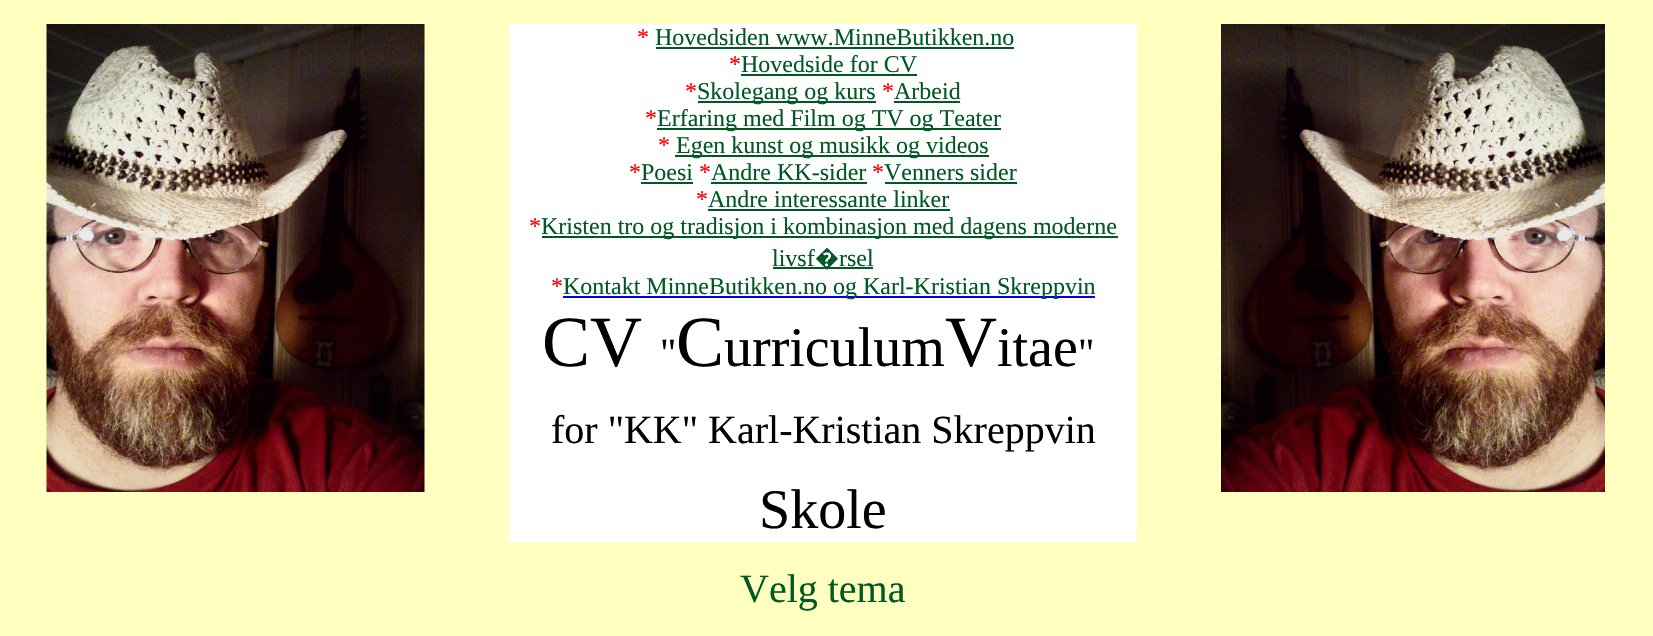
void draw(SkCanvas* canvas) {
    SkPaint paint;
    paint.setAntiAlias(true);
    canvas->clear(0xFFFFFFC0);
    canvas->drawImageRect(SkImages::DeferredFromEncodedData(SkData::MakeFromFileName("img1.png")), SkRect::MakeXYWH(46, 24, 379, 468), SkSamplingOptions());
    paint.setColor(0xFFFFFFFF);
    canvas->drawRect(SkRect::MakeXYWH(509, 24, 628, 518), paint);
    SkFont font1(fontMgr->matchFamilyStyle("Liberation Serif", SkFontStyle::Normal()), 24);
    font1.setSubpixel(true);
    paint.setColor(0xFFFF0000);
    canvas->drawString("*", 637, 45, font1, paint);
    paint.setColor(0xFF005824);
    canvas->drawString("Hovedsiden www.MinneButikken.no", 655, 45, font1, paint);
    canvas->drawRect(SkRect::MakeXYWH(656, 47, 358, 2), paint);
    paint.setColor(0xFFFF0000);
    canvas->drawString("*", 729, 72, font1, paint);
    paint.setColor(0xFF005824);
    canvas->drawString("Hovedside for CV", 741, 72, font1, paint);
    canvas->drawRect(SkRect::MakeXYWH(741, 74, 176, 2), paint);
    paint.setColor(0xFFFF0000);
    canvas->drawString("*", 685, 99, font1, paint);
    paint.setColor(0xFF005824);
    canvas->drawRect(SkRect::MakeXYWH(698, 101, 178, 2), paint);
    canvas->drawString("Skolegang og kurs", 697, 99, font1, paint);
    paint.setColor(0xFFFF0000);
    canvas->drawString("*", 882, 99, font1, paint);
    paint.setColor(0xFF005824);
    canvas->drawString("Arbeid", 894, 99, font1, paint);
    canvas->drawRect(SkRect::MakeXYWH(894, 101, 66, 2), paint);
    paint.setColor(0xFFFF0000);
    canvas->drawString("*", 645, 126, font1, paint);
    paint.setColor(0xFF005824);
    canvas->drawRect(SkRect::MakeXYWH(657, 128, 344, 2), paint);
    canvas->drawString("Erfaring med Film og TV og Teater", 657, 126, font1, paint);
    paint.setColor(0xFFFF0000);
    canvas->drawString("*", 658, 153, font1, paint);
    paint.setColor(0xFF005824);
    canvas->drawRect(SkRect::MakeXYWH(675, 155, 314, 2), paint);
    canvas->drawString("Egen kunst og musikk og videos", 676, 153, font1, paint);
    paint.setColor(0xFFFF0000);
    canvas->drawString("*", 629, 180, font1, paint);
    paint.setColor(0xFF005824);
    canvas->drawString("Poesi", 641, 180, font1, paint);
    canvas->drawRect(SkRect::MakeXYWH(641, 182, 52, 2), paint);
    paint.setColor(0xFFFF0000);
    canvas->drawString("*", 699, 180, font1, paint);
    paint.setColor(0xFF005824);
    canvas->drawString("Andre KK-sider", 711, 180, font1, paint);
    canvas->drawRect(SkRect::MakeXYWH(711, 182, 156, 2), paint);
    paint.setColor(0xFFFF0000);
    canvas->drawString("*", 872, 180, font1, paint);
    paint.setColor(0xFF005824);
    canvas->drawString("Venners sider", 884, 180, font1, paint);
    canvas->drawRect(SkRect::MakeXYWH(885, 182, 132, 2), paint);
    paint.setColor(0xFFFF0000);
    canvas->drawString("*", 696, 207, font1, paint);
    paint.setColor(0xFF005824);
    canvas->drawString("Andre interessante linker", 708, 207, font1, paint);
    canvas->drawRect(SkRect::MakeXYWH(708, 209, 242, 2), paint);
    paint.setColor(0xFFFF0000);
    canvas->drawString("*", 529, 234, font1, paint);
    paint.setColor(0xFF005824);
    canvas->drawRect(SkRect::MakeXYWH(542, 236, 576, 2), paint);
    canvas->drawString("Kristen tro og tradisjon i kombinasjon med dagens moderne", 541, 234, font1, paint);
    canvas->drawString("livsf", 772, 266, font1, paint);
    canvas->drawRect(SkRect::MakeXYWH(773, 267, 100, 2), paint);
    SkFont font2(fontMgr->matchFamilyStyle("Noto Sans", SkFontStyle::Normal()), 24);
    font2.setSubpixel(true);
    canvas->drawString("�", 815, 266, font2, paint);
    canvas->drawString("rsel", 839, 266, font1, paint);
    paint.setColor(0xFFFF0000);
    canvas->drawString("*", 551, 294, font1, paint);
    paint.setColor(0xFF0000EE);
    canvas->drawRect(SkRect::MakeXYWH(563, 296, 532, 2), paint);
    paint.setColor(0xFF005824);
    canvas->drawString("Kontakt MinneButikken.no og Karl-Kristian Skreppvin", 563, 294, font1, paint);
    SkFont font3(fontMgr->matchFamilyStyle("Liberation Serif", SkFontStyle::Normal()), 72);
    font3.setSubpixel(true);
    paint.setColor(0xFF000000);
    canvas->drawString("CV", 542, 366, font3, paint);
    SkFont font4(fontMgr->matchFamilyStyle("Liberation Serif", SkFontStyle::Normal()), 40);
    font4.setSubpixel(true);
    canvas->drawString("\"", 660, 366, font4, paint);
    canvas->drawString("C", 676, 366, font3, paint);
    SkFont font5(fontMgr->matchFamilyStyle("Liberation Serif", SkFontStyle::Normal()), 56);
    font5.setSubpixel(true);
    canvas->drawString("urriculum", 724, 366, font5, paint);
    canvas->drawString("V", 945, 366, font3, paint);
    canvas->drawString("itae", 997, 366, font5, paint);
    canvas->drawString("\"", 1078, 366, font4, paint);
    canvas->drawString("for \"KK\" Karl-Kristian Skreppvin", 551, 443, font4, paint);
    canvas->drawString("Skole", 759, 528, font5, paint);
    paint.setColor(0xFF005824);
    canvas->drawString("Velg tema", 740, 602, font4, paint);
    canvas->drawImageRect(SkImages::DeferredFromEncodedData(SkData::MakeFromFileName("img2.png")), SkRect::MakeXYWH(1221, 24, 384, 468), SkSamplingOptions());
}
